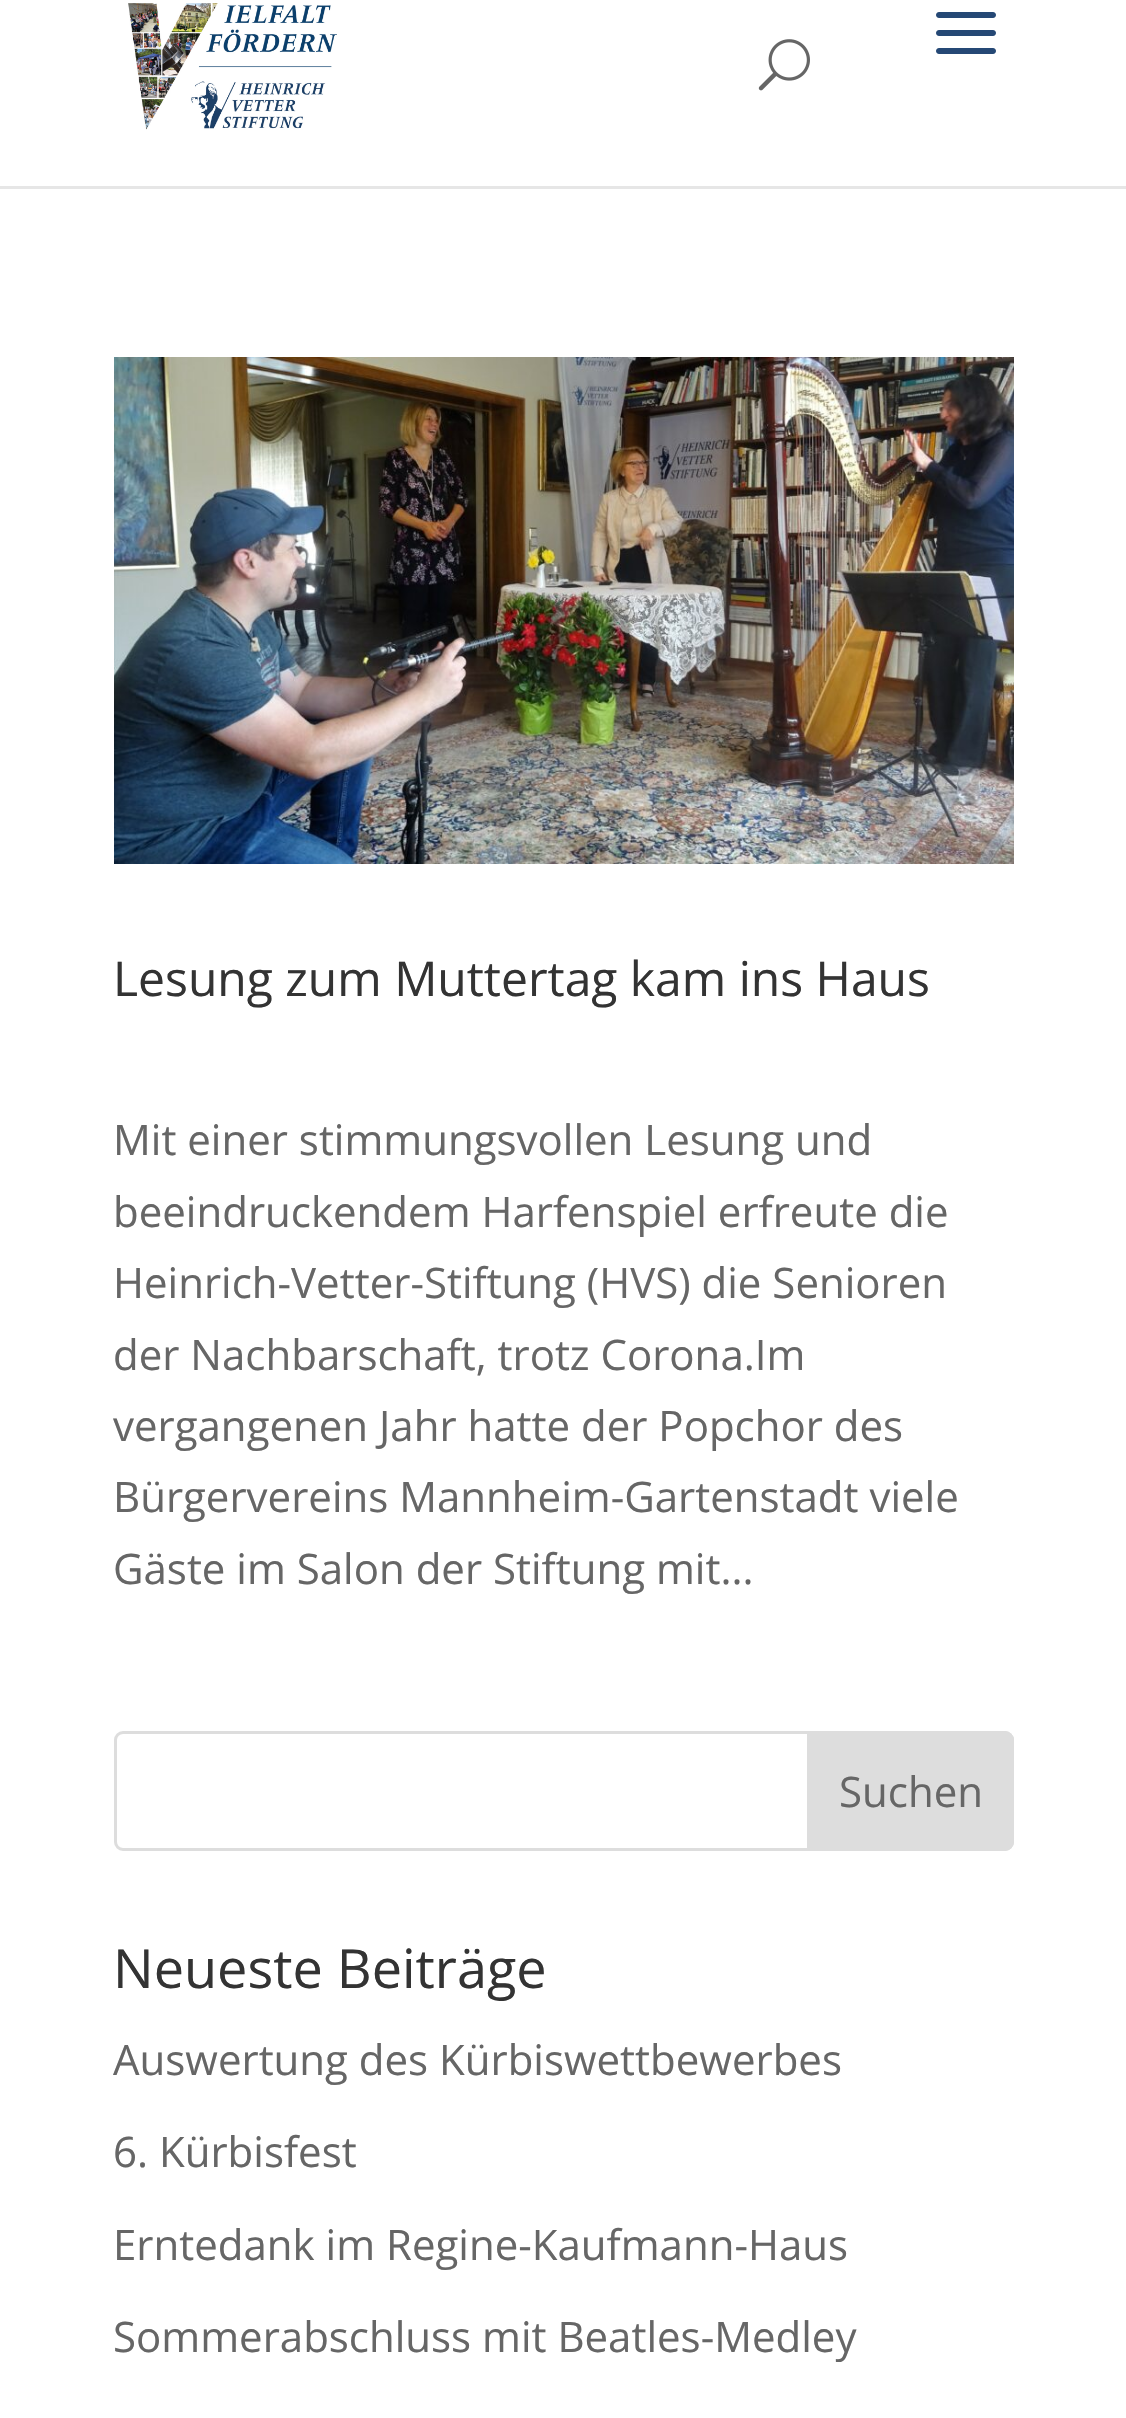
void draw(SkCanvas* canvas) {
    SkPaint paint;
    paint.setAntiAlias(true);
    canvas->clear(0xFFFFFFFF);
    paint.setColor(0xFFE6E6E6);
    canvas->drawRect(SkRect::MakeXYWH(0, 186, 1126, 3), paint);
    canvas->drawImageRect(SkImages::DeferredFromEncodedData(SkData::MakeFromFileName("img1.png")), SkRect::MakeXYWH(128, 3, 209, 127), SkSamplingOptions());
    canvas->drawImageRect(SkImages::DeferredFromEncodedData(SkData::MakeFromFileName("img2.png")), SkRect::MakeXYWH(936, 12, 60, 42), SkSamplingOptions());
    canvas->drawImageRect(SkImages::DeferredFromEncodedData(SkData::MakeFromFileName("img3.png")), SkRect::MakeXYWH(758, 39, 52, 52), SkSamplingOptions());
    canvas->drawImageRect(SkImages::DeferredFromEncodedData(SkData::MakeFromFileName("img4.png")), SkRect::MakeXYWH(114, 357, 900, 507), SkSamplingOptions());
    SkFont font1(fontMgr->matchFamilyStyle("Open Sans", SkFontStyle::Normal()), 48);
    font1.setSubpixel(true);
    paint.setColor(0xFF333333);
    canvas->drawString("Lesung zum Muttertag kam ins Haus", 113, 996, font1, paint);
    SkFont font2(fontMgr->matchFamilyStyle("Open Sans", SkFontStyle::Normal()), 42);
    font2.setSubpixel(true);
    paint.setColor(0xFF666666);
    canvas->drawString("Mit einer stimmungsvollen Lesung und", 113, 1155, font2, paint);
    canvas->drawString("beeindruckendem Harfenspiel erfreute die", 113, 1227, font2, paint);
    canvas->drawString("Heinrich-Vetter-Stiftung (HVS) die Senioren", 113, 1298, font2, paint);
    canvas->drawString("der Nachbarschaft, trotz Corona.Im", 113, 1370, font2, paint);
    canvas->drawString("vergangenen Jahr hatte der Popchor des", 113, 1441, font2, paint);
    canvas->drawString("Bürgervereins Mannheim-Gartenstadt viele", 113, 1512, font2, paint);
    canvas->drawString("Gäste im Salon der Stiftung mit...", 113, 1584, font2, paint);
    paint.setStyle(SkPaint::kStroke_Style);
    paint.setStrokeWidth(3);
    paint.setColor(0xFFDDDDDD);
    canvas->drawRoundRect(SkRect::MakeXYWH(115.5f, 1732.5f, 897, 117), 7.5f, 7.5f, paint);
    paint.setStyle(SkPaint::kFill_Style);
    canvas->drawPath(SkPathBuilder().moveTo(808.5f, 1732.5f).lineTo(1005, 1732.5f).cubicTo(1009, 1732.5f, 1012.5f, 1736, 1012.5f, 1740).lineTo(1012.5f, 1842).cubicTo(1012.5f, 1846, 1009, 1849.5f, 1005, 1849.5f).lineTo(808.5f, 1849.5f).close().detach(), paint);
    paint.setStyle(SkPaint::kStroke_Style);
    canvas->drawPath(SkPathBuilder().moveTo(808.5f, 1732.5f).lineTo(1005, 1732.5f).cubicTo(1009, 1732.5f, 1012.5f, 1736, 1012.5f, 1740).lineTo(1012.5f, 1842).cubicTo(1012.5f, 1846, 1009, 1849.5f, 1005, 1849.5f).lineTo(808.5f, 1849.5f).close().detach(), paint);
    paint.setStyle(SkPaint::kFill_Style);
    paint.setColor(0xFF666666);
    canvas->drawString("Suchen", 839, 1807, font2, paint);
    SkFont font3(fontMgr->matchFamilyStyle("Open Sans", SkFontStyle::Normal()), 54);
    font3.setSubpixel(true);
    paint.setColor(0xFF333333);
    canvas->drawString("Neueste Beiträge", 113, 1988, font3, paint);
    paint.setColor(0xFF666666);
    canvas->drawString("Auswertung des Kürbiswettbewerbes", 113, 2075, font2, paint);
    canvas->drawString("6. Kürbisfest", 113, 2167, font2, paint);
    canvas->drawString("Erntedank im Regine-Kaufmann-Haus", 113, 2260, font2, paint);
    canvas->drawString("Sommerabschluss mit Beatles-Medley", 113, 2352, font2, paint);
}
